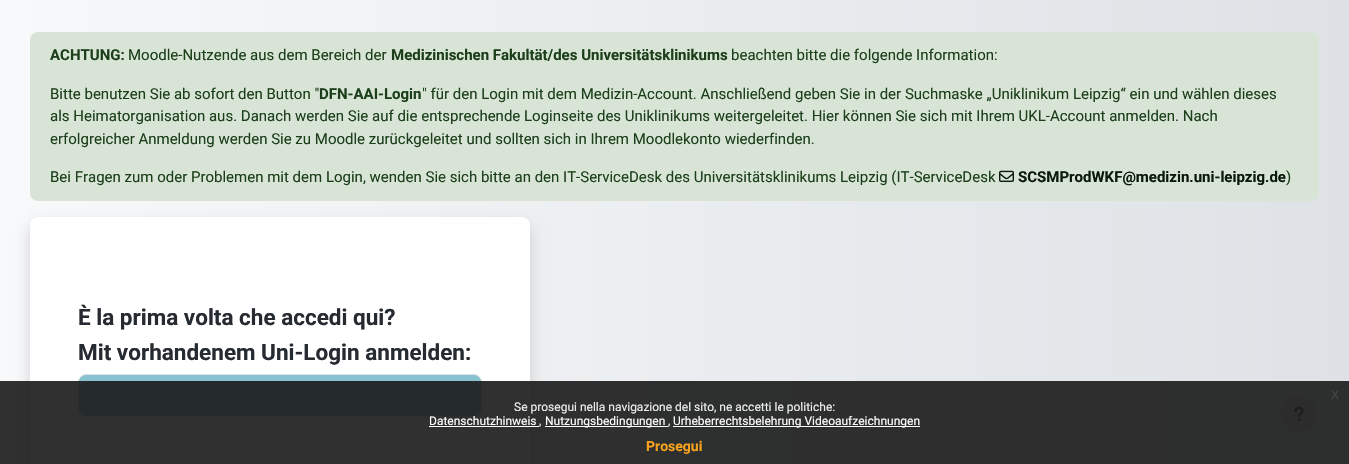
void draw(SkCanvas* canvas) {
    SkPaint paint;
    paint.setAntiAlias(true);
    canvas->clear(0xFFFFFFFF);
    {
        const SkColor colors[] = {0xFFF8F9FA, 0xFFDEE2E6};
        const float stops[] = {0, 1};
        const SkPoint ends[] = {{0, 430}, {1349, 430}};
        paint.setShader(SkGradientShader::MakeLinear(ends, colors, stops, 2, SkTileMode::kClamp));
        paint.setAlpha(255);
    }
    canvas->drawRect(SkRect::MakeXYWH(0, 0, 1349, 464), paint);
    paint.setShader(nullptr);
    paint.setColor(0xFFD7E4D6);
    canvas->drawRoundRect(SkRect::MakeXYWH(30, 32, 1289, 169), 8, 8, paint);
    SkFont font1(fontMgr->matchFamilyStyle("Roboto", SkFontStyle::Bold()), 15);
    font1.setSubpixel(true);
    paint.setColor(0xFF1C3F1A);
    canvas->drawString("ACHTUNG:", 50, 60, font1, paint);
    SkFont font2(fontMgr->matchFamilyStyle("Roboto", SkFontStyle::Normal()), 15);
    font2.setSubpixel(true);
    canvas->drawString("Moodle-Nutzende aus dem Bereich der", 128, 60, font2, paint);
    canvas->drawString("Medizinischen Fakultät/des Universitätsklinikums", 391, 60, font1, paint);
    canvas->drawString("beachten bitte die folgende Information:", 731, 60, font2, paint);
    canvas->drawString("Bitte benutzen Sie ab sofort den Button \"", 50, 99, font2, paint);
    canvas->drawString("DFN-AAI-Login", 319, 99, font1, paint);
    canvas->drawString("\" für den Login mit dem Medizin-Account. Anschließend geben Sie in der Suchmaske „Uniklinikum Leipzig“ ein und wählen dieses", 422, 99, font2, paint);
    canvas->drawString("als Heimatorganisation aus. Danach werden Sie auf die entsprechende Loginseite des Uniklinikums weitergeleitet. Hier können Sie sich mit Ihrem UKL-Account anmelden. Nach", 50, 121, font2, paint);
    canvas->drawString("erfolgreicher Anmeldung werden Sie zu Moodle zurückgeleitet und sollten sich in Ihrem Moodlekonto wiederfinden.", 50, 144, font2, paint);
    canvas->drawString("Bei Fragen zum oder Problemen mit dem Login, wenden Sie sich bitte an den IT-ServiceDesk des Universitätsklinikums Leipzig (IT-ServiceDesk", 50, 182, font2, paint);
    canvas->drawImageRect(SkImages::DeferredFromEncodedData(SkData::MakeFromFileName("img1.png")), SkRect::MakeXYWH(999, 170, 15, 12), SkSamplingOptions());
    paint.setColor(0xFF0B190A);
    canvas->drawString("SCSMProdWKF@medizin.uni-leipzig.de", 1018, 182, font1, paint);
    paint.setColor(0xFF1C3F1A);
    canvas->drawString(")", 1286, 182, font2, paint);
    paint.setColor(0x26000000);
    paint.setMaskFilter(SkMaskFilter::MakeBlur(kNormal_SkBlurStyle, 8));
    canvas->drawRoundRect(SkRect::MakeXYWH(30, 225, 500, 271), 8, 8, paint);
    paint.setMaskFilter(nullptr);
    paint.setColor(0xFFFFFFFF);
    canvas->drawRoundRect(SkRect::MakeXYWH(30, 217, 500, 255), 8, 8, paint);
    SkFont font3(fontMgr->matchFamilyStyle("Roboto", SkFontStyle::Bold()), 22.5f);
    font3.setSubpixel(true);
    paint.setColor(0xFF262A31);
    canvas->drawString("È la prima volta che accedi qui?", 78, 325, font3, paint);
    canvas->drawString("Mit vorhandenem Uni-Login anmelden:", 78, 360, font3, paint);
    paint.setColor(0xFF8AC2D1);
    canvas->drawRoundRect(SkRect::MakeXYWH(78.5f, 374.5f, 403, 42), 7.5f, 7.5f, paint);
    paint.setStyle(SkPaint::kStroke_Style);
    paint.setStrokeWidth(1);
    paint.setColor(0xFFDEE2E6);
    canvas->drawRoundRect(SkRect::MakeXYWH(78.5f, 374.5f, 403, 42), 7.5f, 7.5f, paint);
    paint.setStyle(SkPaint::kFill_Style);
    canvas->drawRect(SkRect::MakeXYWH(78, 441, 404, 1), paint);
    paint.setColor(0xFFCED4DA);
    canvas->drawCircle(1299, 414, 18, paint);
    canvas->drawImageRect(SkImages::DeferredFromEncodedData(SkData::MakeFromFileName("img2.png")), SkRect::MakeXYWH(1294, 407, 10, 14), SkSamplingOptions());
    paint.setColor(0xE6191919);
    canvas->drawRect(SkRect::MakeXYWH(0, 381, 1349, 83), paint);
    SkFont font4(fontMgr->matchFamilyStyle("Liberation Sans", SkFontStyle::Normal()), 16);
    font4.setSubpixel(true);
    paint.setColor(0xFF444445);
    canvas->drawString("x", 1331, 399, font4, paint);
    SkFont font5(fontMgr->matchFamilyStyle("Roboto", SkFontStyle::Normal()), 12);
    font5.setSubpixel(true);
    paint.setColor(0xFFEFEFEF);
    canvas->drawString("Se prosegui nella navigazione del sito, ne accetti le politiche:", 514, 411, font5, paint);
    paint.setColor(0xFFFFFFFF);
    canvas->drawString("Datenschutzhinweis", 429, 425, font5, paint);
    canvas->drawRect(SkRect::MakeXYWH(429, 426, 110, 1), paint);
    paint.setColor(0xFFEFEFEF);
    canvas->drawString(",", 539, 425, font5, paint);
    paint.setColor(0xFFFFFFFF);
    canvas->drawRect(SkRect::MakeXYWH(545, 426, 123, 1), paint);
    canvas->drawString("Nutzungsbedingungen", 545, 425, font5, paint);
    paint.setColor(0xFFEFEFEF);
    canvas->drawString(",", 668, 425, font5, paint);
    paint.setColor(0xFFFFFFFF);
    canvas->drawRect(SkRect::MakeXYWH(673, 426, 247, 1), paint);
    canvas->drawString("Urheberrechtsbelehrung Videoaufzeichnungen", 673, 425, font5, paint);
    SkFont font6(fontMgr->matchFamilyStyle("Roboto", SkFontStyle::Bold()), 14);
    font6.setSubpixel(true);
    paint.setColor(0xFFF6A21D);
    canvas->drawString("Prosegui", 646, 451, font6, paint);
}
